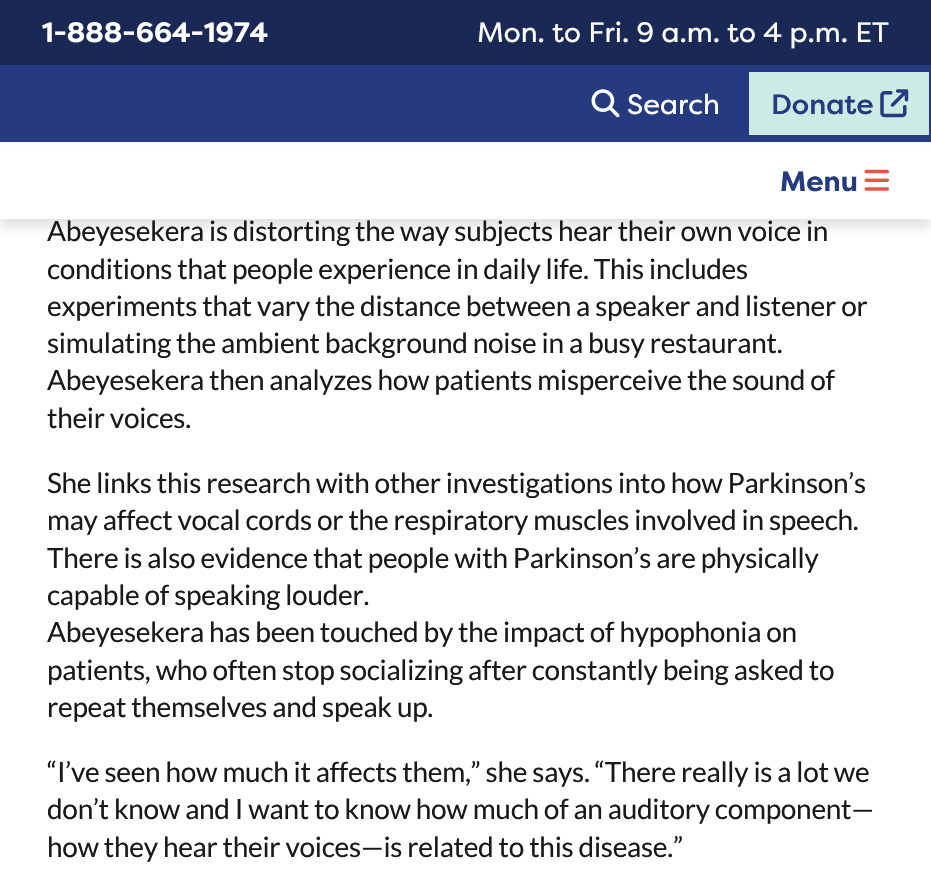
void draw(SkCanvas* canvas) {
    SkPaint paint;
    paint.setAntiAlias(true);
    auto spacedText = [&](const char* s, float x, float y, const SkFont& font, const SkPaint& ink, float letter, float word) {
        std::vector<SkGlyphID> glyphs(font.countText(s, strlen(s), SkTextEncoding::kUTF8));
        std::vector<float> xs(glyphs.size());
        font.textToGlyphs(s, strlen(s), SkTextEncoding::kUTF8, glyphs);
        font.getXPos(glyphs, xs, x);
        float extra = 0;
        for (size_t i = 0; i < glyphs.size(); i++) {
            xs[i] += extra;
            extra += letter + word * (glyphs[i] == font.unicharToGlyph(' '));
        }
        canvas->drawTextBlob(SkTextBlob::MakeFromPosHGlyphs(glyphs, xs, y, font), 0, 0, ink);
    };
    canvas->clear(0xFFFFFFFF);
    paint.setColor(0xFF1A2856);
    canvas->drawRect(SkRect::MakeXYWH(0, 0, 931, 65), paint);
    SkFont font1(fontMgr->matchFamilyStyle("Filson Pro", SkFontStyle::Bold()), 28);
    font1.setSubpixel(true);
    paint.setColor(0xFFFFFFFF);
    canvas->drawString("1-888-664-1974", 42, 42, font1, paint);
    SkFont font2(fontMgr->matchFamilyStyle("Filson Pro", SkFontStyle::Normal()), 28);
    font2.setSubpixel(true);
    canvas->drawString("Mon. to Fri. 9 a.m. to 4 p.m. ET", 477, 42, font2, paint);
    paint.setColor(0x1A000000);
    paint.setMaskFilter(SkMaskFilter::MakeBlur(kNormal_SkBlurStyle, 4.5f));
    canvas->drawRect(SkRect::MakeXYWH(0, 151, 931, 77), paint);
    paint.setMaskFilter(nullptr);
    paint.setColor(0xFF263B7F);
    canvas->drawRect(SkRect::MakeXYWH(0, 65, 931, 77), paint);
    canvas->drawImageRect(SkImages::DeferredFromEncodedData(SkData::MakeFromFileName("img1.png")), SkRect::MakeXYWH(591, 89, 29, 29), SkSamplingOptions());
    paint.setColor(0xFFFFFFFF);
    canvas->drawString("Search", 627, 114, font2, paint);
    paint.setColor(0xFFCDEAE5);
    canvas->drawRect(SkRect::MakeXYWH(749, 72, 180, 63), paint);
    SkFont font3(fontMgr->matchFamilyStyle("Filson Pro", SkFontStyle(500, SkFontStyle::kNormal_Width, SkFontStyle::kUpright_Slant)), 28);
    font3.setSubpixel(true);
    paint.setColor(0xFF263B7F);
    canvas->drawString("Donate", 771, 114, font3, paint);
    canvas->drawImageRect(SkImages::DeferredFromEncodedData(SkData::MakeFromFileName("img2.png")), SkRect::MakeXYWH(880, 89, 29, 29), SkSamplingOptions());
    paint.setColor(0xFFFFFFFF);
    canvas->drawRect(SkRect::MakeXYWH(0, 145, 931, 74), paint);
    paint.setColor(0xFF263B7F);
    canvas->drawString("Menu", 780, 191, font1, paint);
    canvas->drawImageRect(SkImages::DeferredFromEncodedData(SkData::MakeFromFileName("img3.png")), SkRect::MakeXYWH(864, 169, 25, 22), SkSamplingOptions());
    SkFont font4(fontMgr->matchFamilyStyle("Lato", SkFontStyle::Normal()), 28);
    font4.setSubpixel(true);
    paint.setColor(0xFF1B1818);
    spacedText("Abeyesekera is distorting the way subjects hear their own voice in", 47, 241, font4, paint, -0.28f, 0);
    spacedText("conditions that people experience in daily life. This includes", 47, 279, font4, paint, -0.28f, 0);
    spacedText("experiments that vary the distance between a speaker and listener or", 47, 316, font4, paint, -0.28f, 0);
    spacedText("simulating the ambient background noise in a busy restaurant.", 47, 353, font4, paint, -0.28f, 0);
    spacedText("Abeyesekera then analyzes how patients misperceive the sound of", 47, 390, font4, paint, -0.28f, 0);
    spacedText("their voices.", 47, 428, font4, paint, -0.28f, 0);
    spacedText("She links this research with other investigations into how Parkinson’s", 47, 493, font4, paint, -0.28f, 0);
    spacedText("may affect vocal cords or the respiratory muscles involved in speech.", 47, 530, font4, paint, -0.28f, 0);
    spacedText("There is also evidence that people with Parkinson’s are physically", 47, 568, font4, paint, -0.28f, 0);
    spacedText("capable of speaking louder.", 47, 605, font4, paint, -0.28f, 0);
    spacedText("Abeyesekera has been touched by the impact of hypophonia on", 47, 642, font4, paint, -0.28f, 0);
    spacedText("patients, who often stop socializing after constantly being asked to", 47, 680, font4, paint, -0.28f, 0);
    spacedText("repeat themselves and speak up.", 47, 717, font4, paint, -0.28f, 0);
    spacedText("“I’ve seen how much it affects them,” she says. “There really is a lot we", 47, 782, font4, paint, -0.28f, 0);
    spacedText("don’t know and I want to know how much of an auditory component—", 47, 819, font4, paint, -0.28f, 0);
    spacedText("how they hear their voices—is related to this disease.”", 47, 857, font4, paint, -0.28f, 0);
}
